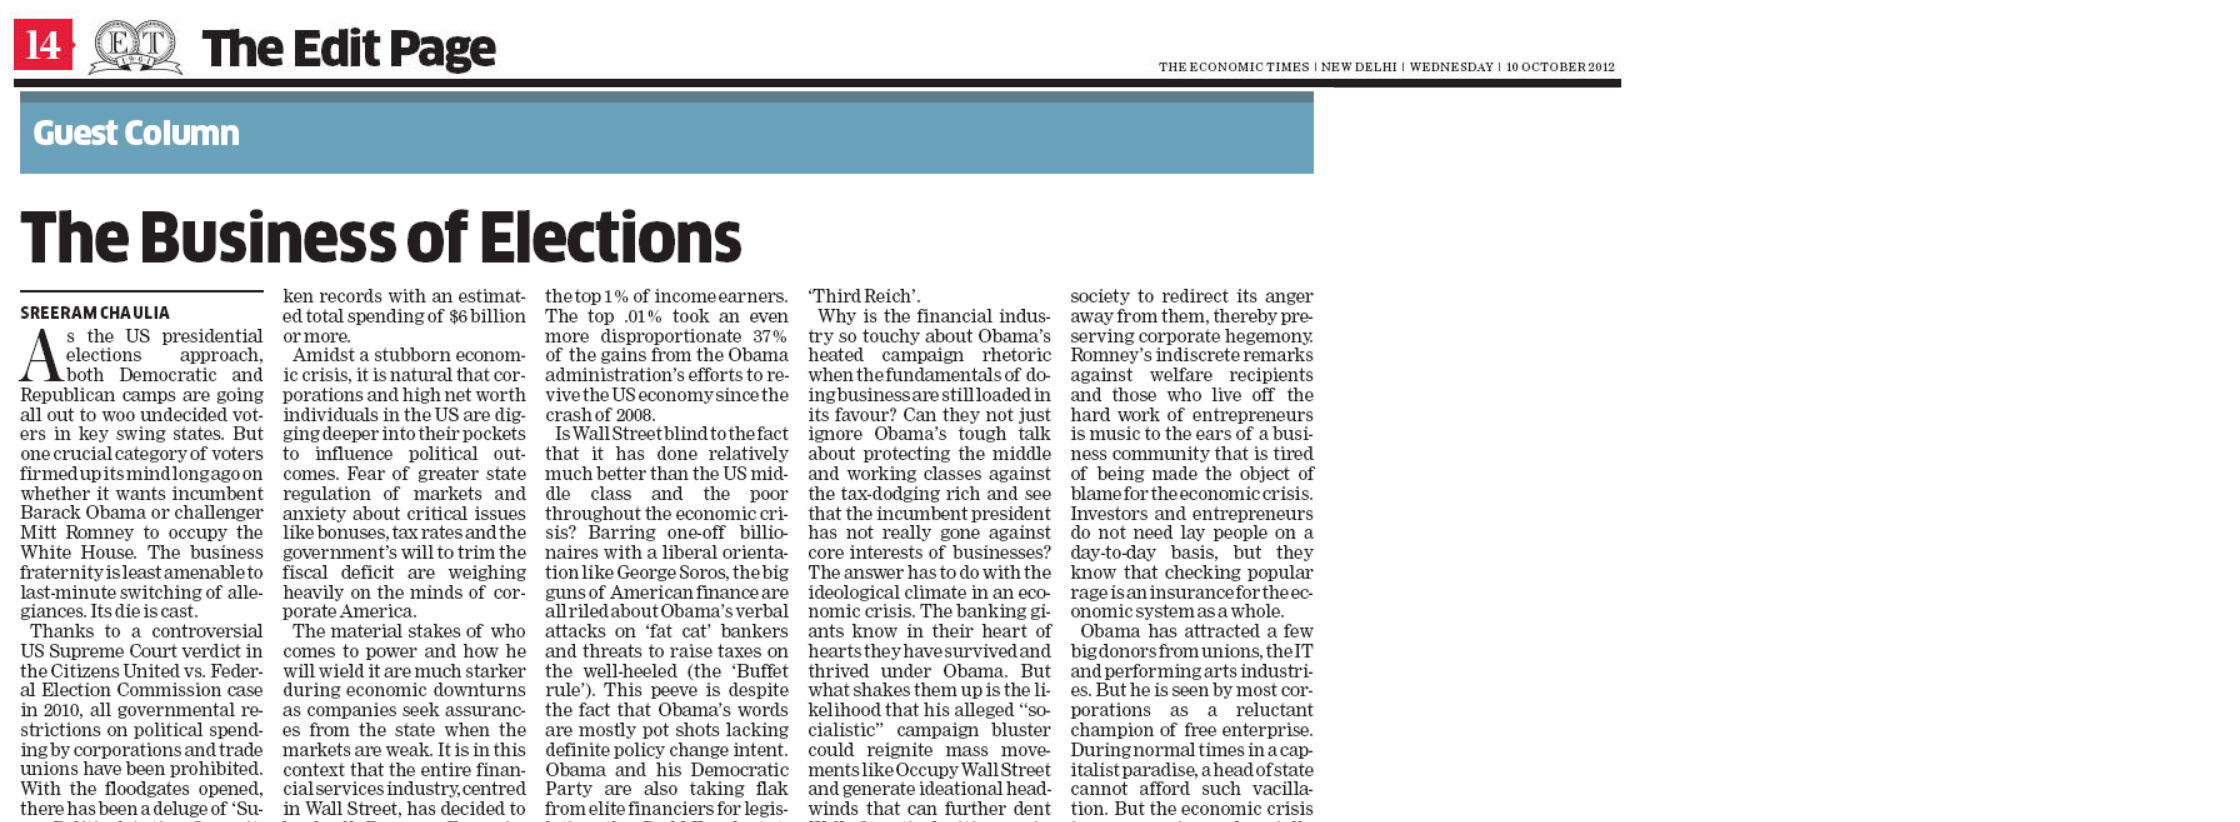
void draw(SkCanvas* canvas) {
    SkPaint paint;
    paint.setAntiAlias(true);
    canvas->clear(0xFFFFFFFF);
    canvas->drawImageRect(SkImages::DeferredFromEncodedData(SkData::MakeFromFileName("img1.png")), SkRect::MakeXYWH(10, 10, 1614, 78), SkSamplingOptions());
    canvas->drawImageRect(SkImages::DeferredFromEncodedData(SkData::MakeFromFileName("img2.png")), SkRect::MakeXYWH(13, 87, 1321, 735), SkSamplingOptions());
}
